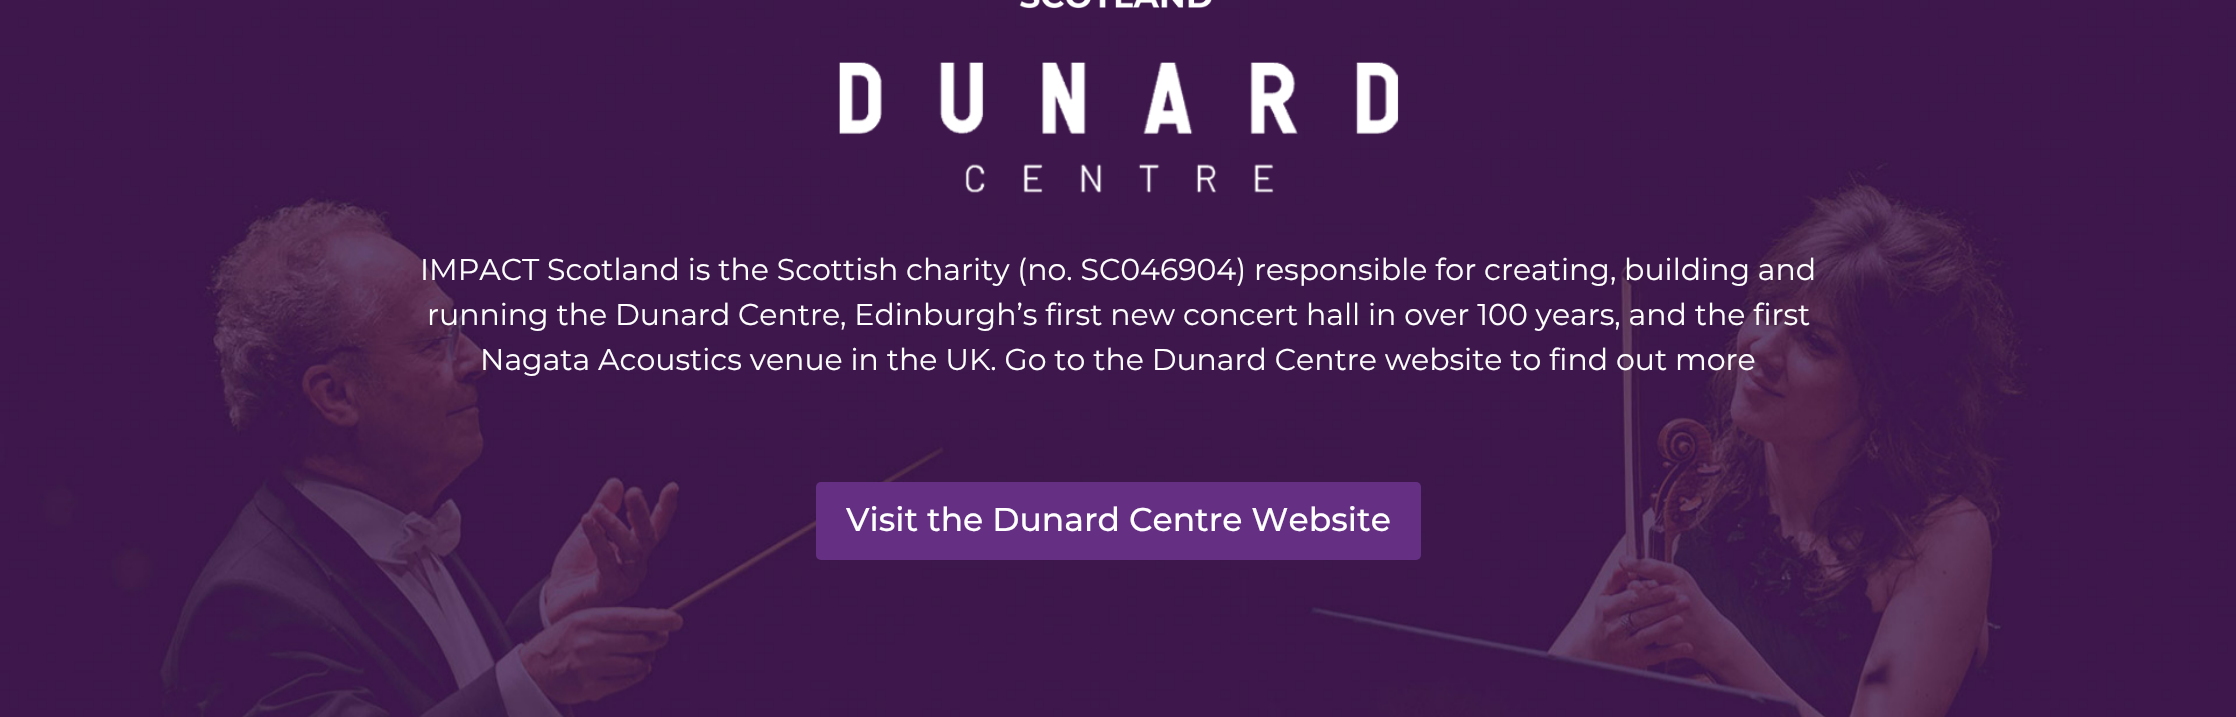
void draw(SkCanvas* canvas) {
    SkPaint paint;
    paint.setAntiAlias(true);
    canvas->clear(0xFFFFFFFF);
    canvas->drawImageRect(SkImages::DeferredFromEncodedData(SkData::MakeFromFileName("img1.png")), SkRect::MakeXYWH(0, 0, 2236, 717), SkSamplingOptions());
    canvas->drawImageRect(SkImages::DeferredFromEncodedData(SkData::MakeFromFileName("img2.png")), SkRect::MakeXYWH(1019, 0, 193, 9), SkSamplingOptions());
    canvas->drawImageRect(SkImages::DeferredFromEncodedData(SkData::MakeFromFileName("img3.png")), SkRect::MakeXYWH(839, 62, 560, 131), SkSamplingOptions());
    SkFont font1(fontMgr->matchFamilyStyle("Montserrat", SkFontStyle::Normal()), 30);
    font1.setSubpixel(true);
    paint.setColor(0xFFFFFFFF);
    canvas->drawString("IMPACT Scotland is the Scottish charity (no. SC046904) responsible for creating, building and", 420, 280, font1, paint);
    canvas->drawString("running the Dunard Centre, Edinburgh’s first new concert hall in over 100 years, and the first", 427, 325, font1, paint);
    canvas->drawString("Nagata Acoustics venue in the UK. Go to the Dunard Centre website to find out more", 480, 370, font1, paint);
    paint.setColor(0xFF652F84);
    canvas->drawRoundRect(SkRect::MakeXYWH(816, 482, 605, 78), 5, 5, paint);
    SkFont font2(fontMgr->matchFamilyStyle("Montserrat", SkFontStyle(500, SkFontStyle::kNormal_Width, SkFontStyle::kUpright_Slant)), 33);
    font2.setSubpixel(true);
    paint.setColor(0xFFFFFFFF);
    canvas->drawString("Visit the Dunard Centre Website", 846, 531, font2, paint);
}
